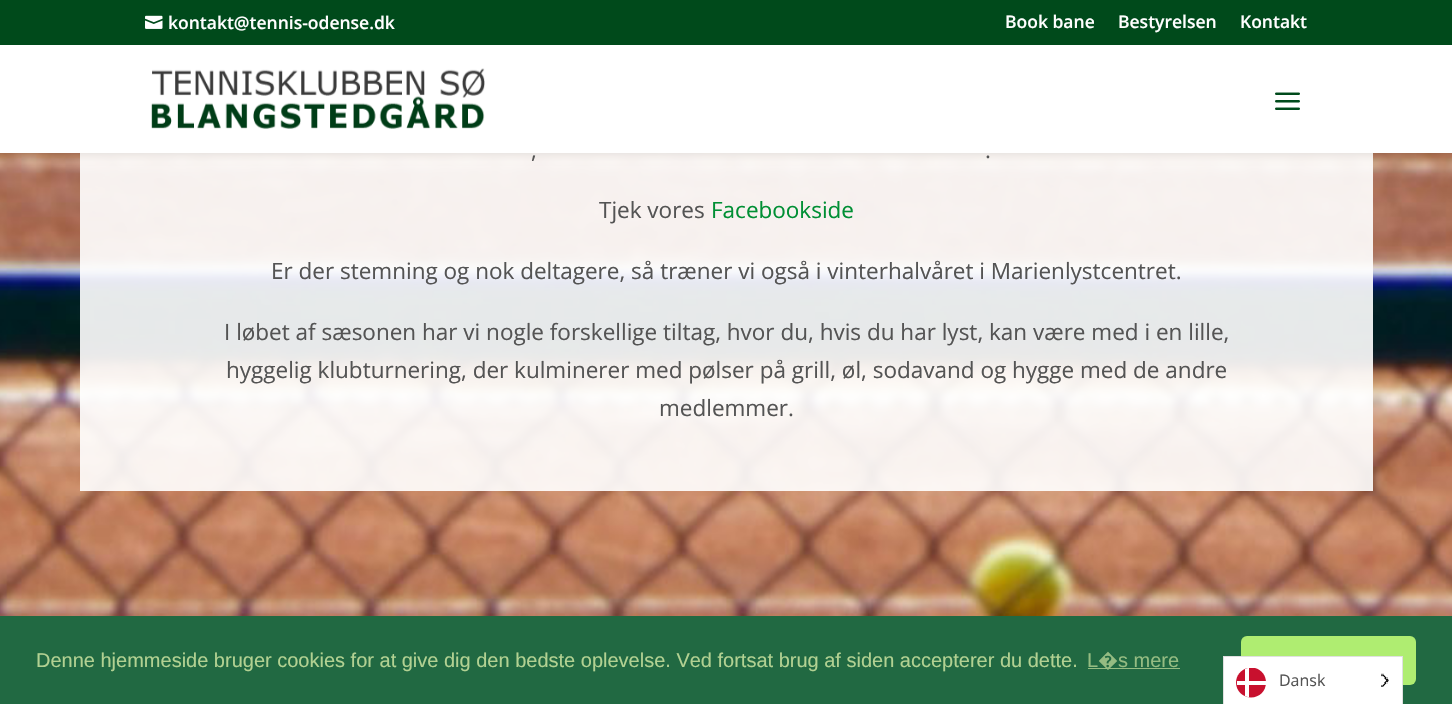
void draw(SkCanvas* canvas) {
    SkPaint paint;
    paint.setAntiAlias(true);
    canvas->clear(0xFFFFFFFF);
    canvas->drawImageRect(SkImages::DeferredFromEncodedData(SkData::MakeFromFileName("img4.png")), SkRect::MakeXYWH(0, 153, 1452, 463), SkSamplingOptions());
    paint.setColor(0xE6FFFFFF);
    canvas->drawRect(SkRect::MakeXYWH(80, 153, 1293, 338), paint);
    paint.setColor(0x1A000000);
    paint.setMaskFilter(SkMaskFilter::MakeBlur(kNormal_SkBlurStyle, 4.5f));
    canvas->drawRect(SkRect::MakeXYWH(0, 45, 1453, 108), paint);
    paint.setMaskFilter(nullptr);
    paint.setColor(0xFF004A1B);
    canvas->drawRect(SkRect::MakeXYWH(0, 0, 1452, 45), paint);
    canvas->drawImageRect(SkImages::DeferredFromEncodedData(SkData::MakeFromFileName("img1.png")), SkRect::MakeXYWH(145, 15, 18, 14), SkSamplingOptions());
    SkFont font1(fontMgr->matchFamilyStyle("Open Sans", SkFontStyle(600, SkFontStyle::kNormal_Width, SkFontStyle::kUpright_Slant)), 17.5f);
    font1.setSubpixel(true);
    paint.setColor(0xFFFFFFFF);
    canvas->drawString("kontakt@tennis-odense.dk", 168, 29, font1, paint);
    canvas->drawString("Book bane", 1005, 28, font1, paint);
    canvas->drawString("Bestyrelsen", 1118, 28, font1, paint);
    canvas->drawString("Kontakt", 1240, 28, font1, paint);
    canvas->drawRect(SkRect::MakeXYWH(0, 45, 1452, 108), paint);
    canvas->drawImageRect(SkImages::DeferredFromEncodedData(SkData::MakeFromFileName("img2.png")), SkRect::MakeXYWH(151, 68, 334, 61), SkSamplingOptions());
    canvas->drawImageRect(SkImages::DeferredFromEncodedData(SkData::MakeFromFileName("img3.png")), SkRect::MakeXYWH(1275, 92, 25, 18), SkSamplingOptions());
    SkFont font2(fontMgr->matchFamilyStyle("Open Sans", SkFontStyle::Normal()), 22.5f);
    font2.setSubpixel(true);
    paint.setColor(0xFF545454);
    canvas->drawString(",", 531, 158, font2, paint);
    canvas->drawString(".", 985, 158, font2, paint);
    canvas->drawString("Tjek vores", 599, 218, font2, paint);
    paint.setColor(0xFF008F34);
    canvas->drawString("Facebookside", 711, 218, font2, paint);
    paint.setColor(0xFF545454);
    canvas->drawString("Er der stemning og nok deltagere, så træner vi også i vinterhalvåret i Marienlystcentret.", 271, 279, font2, paint);
    canvas->drawString("I løbet af sæsonen har vi nogle forskellige tiltag, hvor du, hvis du har lyst, kan være med i en lille,", 224, 340, font2, paint);
    canvas->drawString("hyggelig klubturnering, der kulminerer med pølser på grill, øl, sodavand og hygge med de andre", 226, 378, font2, paint);
    canvas->drawString("medlemmer.", 659, 416, font2, paint);
    paint.setColor(0xFF216942);
    canvas->drawRect(SkRect::MakeXYWH(0, 616, 1452, 88), paint);
    SkFont font3(fontMgr->matchFamilyStyle("Liberation Sans", SkFontStyle::Normal()), 20);
    font3.setSubpixel(true);
    paint.setColor(0xFFB2D192);
    canvas->drawString("Denne hjemmeside bruger cookies for at give dig den bedste oplevelse. Ved fortsat brug af siden accepterer du dette.", 36, 667, font3, paint);
    paint.setColor(0xFF95BC82);
    canvas->drawString("L", 1087, 667, font3, paint);
    canvas->drawRect(SkRect::MakeXYWH(1088, 668, 92, 1), paint);
    SkFont font4(fontMgr->matchFamilyStyle("Noto Sans", SkFontStyle(500, SkFontStyle::kNormal_Width, SkFontStyle::kUpright_Slant)), 20);
    font4.setSubpixel(true);
    canvas->drawString("�", 1098, 667, font4, paint);
    canvas->drawString("s mere", 1118, 667, font3, paint);
    paint.setColor(0xFFAFED71);
    canvas->drawRoundRect(SkRect::MakeXYWH(1241, 636, 175, 49), 6, 6, paint);
    paint.setColor(0xFFFFFFFF);
    canvas->drawRect(SkRect::MakeXYWH(1223.5f, 656.5f, 179, 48), paint);
    paint.setStyle(SkPaint::kStroke_Style);
    paint.setStrokeWidth(1);
    paint.setColor(0xFFE0E0E0);
    canvas->drawRect(SkRect::MakeXYWH(1223.5f, 656.5f, 179, 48), paint);
    paint.setStyle(SkPaint::kFill_Style);
    paint.setColor(0xFFC8102E);
    canvas->drawPath(SkPathBuilder().moveTo(1255, 668).cubicTo(1261.5f, 669.5f, 1266, 675.5f, 1266, 682.5f).cubicTo(1266, 691, 1259.5f, 697.5f, 1251, 697.5f).cubicTo(1243, 697.5f, 1236, 691, 1236, 682.5f).cubicTo(1236, 675.5f, 1241, 669.5f, 1247.5f, 668).close().detach(), paint);
    paint.setColor(0xFFFFFFFF);
    canvas->drawPath(SkPathBuilder().moveTo(1245, 669).cubicTo(1246.5f, 668, 1247.5f, 668, 1249, 668).lineTo(1249, 697.5f).lineTo(1245, 696).close().detach(), paint);
    canvas->drawRect(SkRect::MakeXYWH(1237, 681, 29, 4), paint);
    SkFont font5(fontMgr->matchFamilyStyle("Open Sans", SkFontStyle::Normal()), 16);
    font5.setSubpixel(true);
    paint.setColor(0xFF545454);
    canvas->drawString("Dansk", 1279, 686, font5, paint);
    canvas->drawImageRect(SkImages::DeferredFromEncodedData(SkData::MakeFromFileName("img5.png")), SkRect::MakeXYWH(1381, 673, 8, 14), SkSamplingOptions());
}
